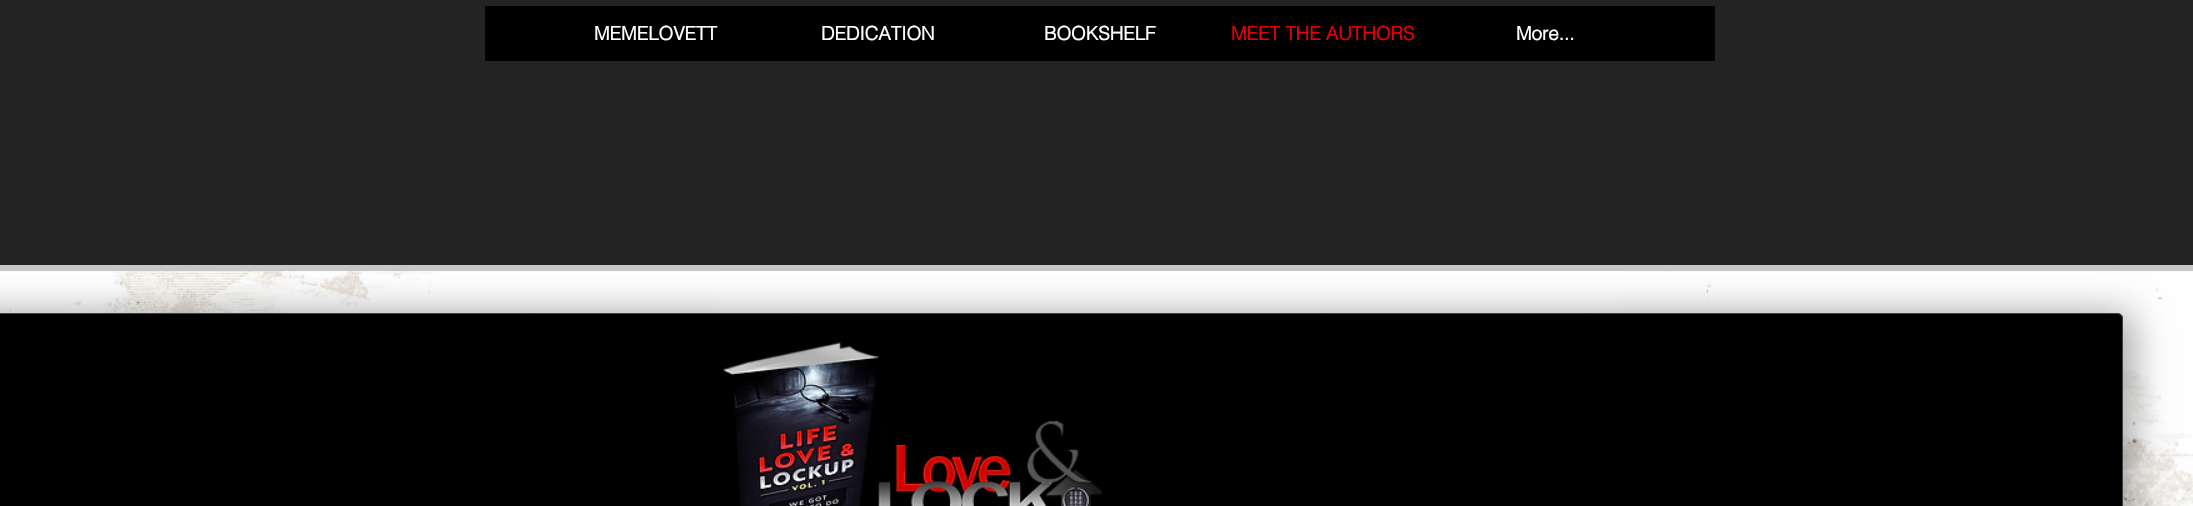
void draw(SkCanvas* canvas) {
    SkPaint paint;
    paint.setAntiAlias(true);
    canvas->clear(0xFFFFFFFF);
    paint.setColor(0xFF242323);
    canvas->drawRect(SkRect::MakeXYWH(0, 0, 2193, 265), paint);
    paint.setColor(0xFF000000);
    canvas->drawRect(SkRect::MakeXYWH(485, 6, 1230, 55), paint);
    SkFont font1(fontMgr->matchFamilyStyle("helvetica", SkFontStyle::Bold()), 18.75f);
    font1.setSubpixel(true);
    paint.setColor(0xFFFFFFFF);
    canvas->drawString("MEMELOVETT", 594, 40, font1, paint);
    canvas->drawString("DEDICATION", 821, 40, font1, paint);
    canvas->drawString("BOOKSHELF", 1044, 40, font1, paint);
    paint.setColor(0xFFE60000);
    canvas->drawString("MEET THE AUTHORS", 1231, 40, font1, paint);
    paint.setColor(0xFFFFFFFF);
    canvas->drawString("More...", 1516, 40, font1, paint);
    paint.setColor(0xFFC7C7C7);
    canvas->drawRect(SkRect::MakeXYWH(0, 265, 2193, 6), paint);
    canvas->drawImageRect(SkImages::DeferredFromEncodedData(SkData::MakeFromFileName("img3.png")), SkRect::MakeXYWH(0, 271, 2193, 235), SkSamplingOptions());
    paint.setColor(0x52000000);
    paint.setMaskFilter(SkMaskFilter::MakeBlur(kNormal_SkBlurStyle, 17.5f));
    canvas->drawRoundRect(SkRect::MakeXYWH(-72, 311, 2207, 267), 19, 19, paint);
    paint.setMaskFilter(nullptr);
    paint.setColor(0xFF000000);
    canvas->drawPath(SkPathBuilder().moveTo(0, 313).lineTo(2117, 313).cubicTo(2120.5f, 313, 2123, 315.5f, 2123, 319).lineTo(2123, 506).cubicTo(2123, 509.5f, 2120.5f, 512, 2117, 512).lineTo(0, 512).close().detach(), paint);
    paint.setStyle(SkPaint::kStroke_Style);
    paint.setStrokeWidth(1);
    paint.setColor(0xFF414141);
    canvas->drawRoundRect(SkRect::MakeXYWH(-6.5f, 313.5f, 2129, 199), 5.5f, 5.5f, paint);
    canvas->drawImageRect(SkImages::DeferredFromEncodedData(SkData::MakeFromFileName("img2.png")), SkRect::MakeXYWH(878, 420, 224, 86), SkSamplingOptions());
    canvas->drawImageRect(SkImages::DeferredFromEncodedData(SkData::MakeFromFileName("img1.png")), SkRect::MakeXYWH(722, 342, 157, 164), SkSamplingOptions());
}
